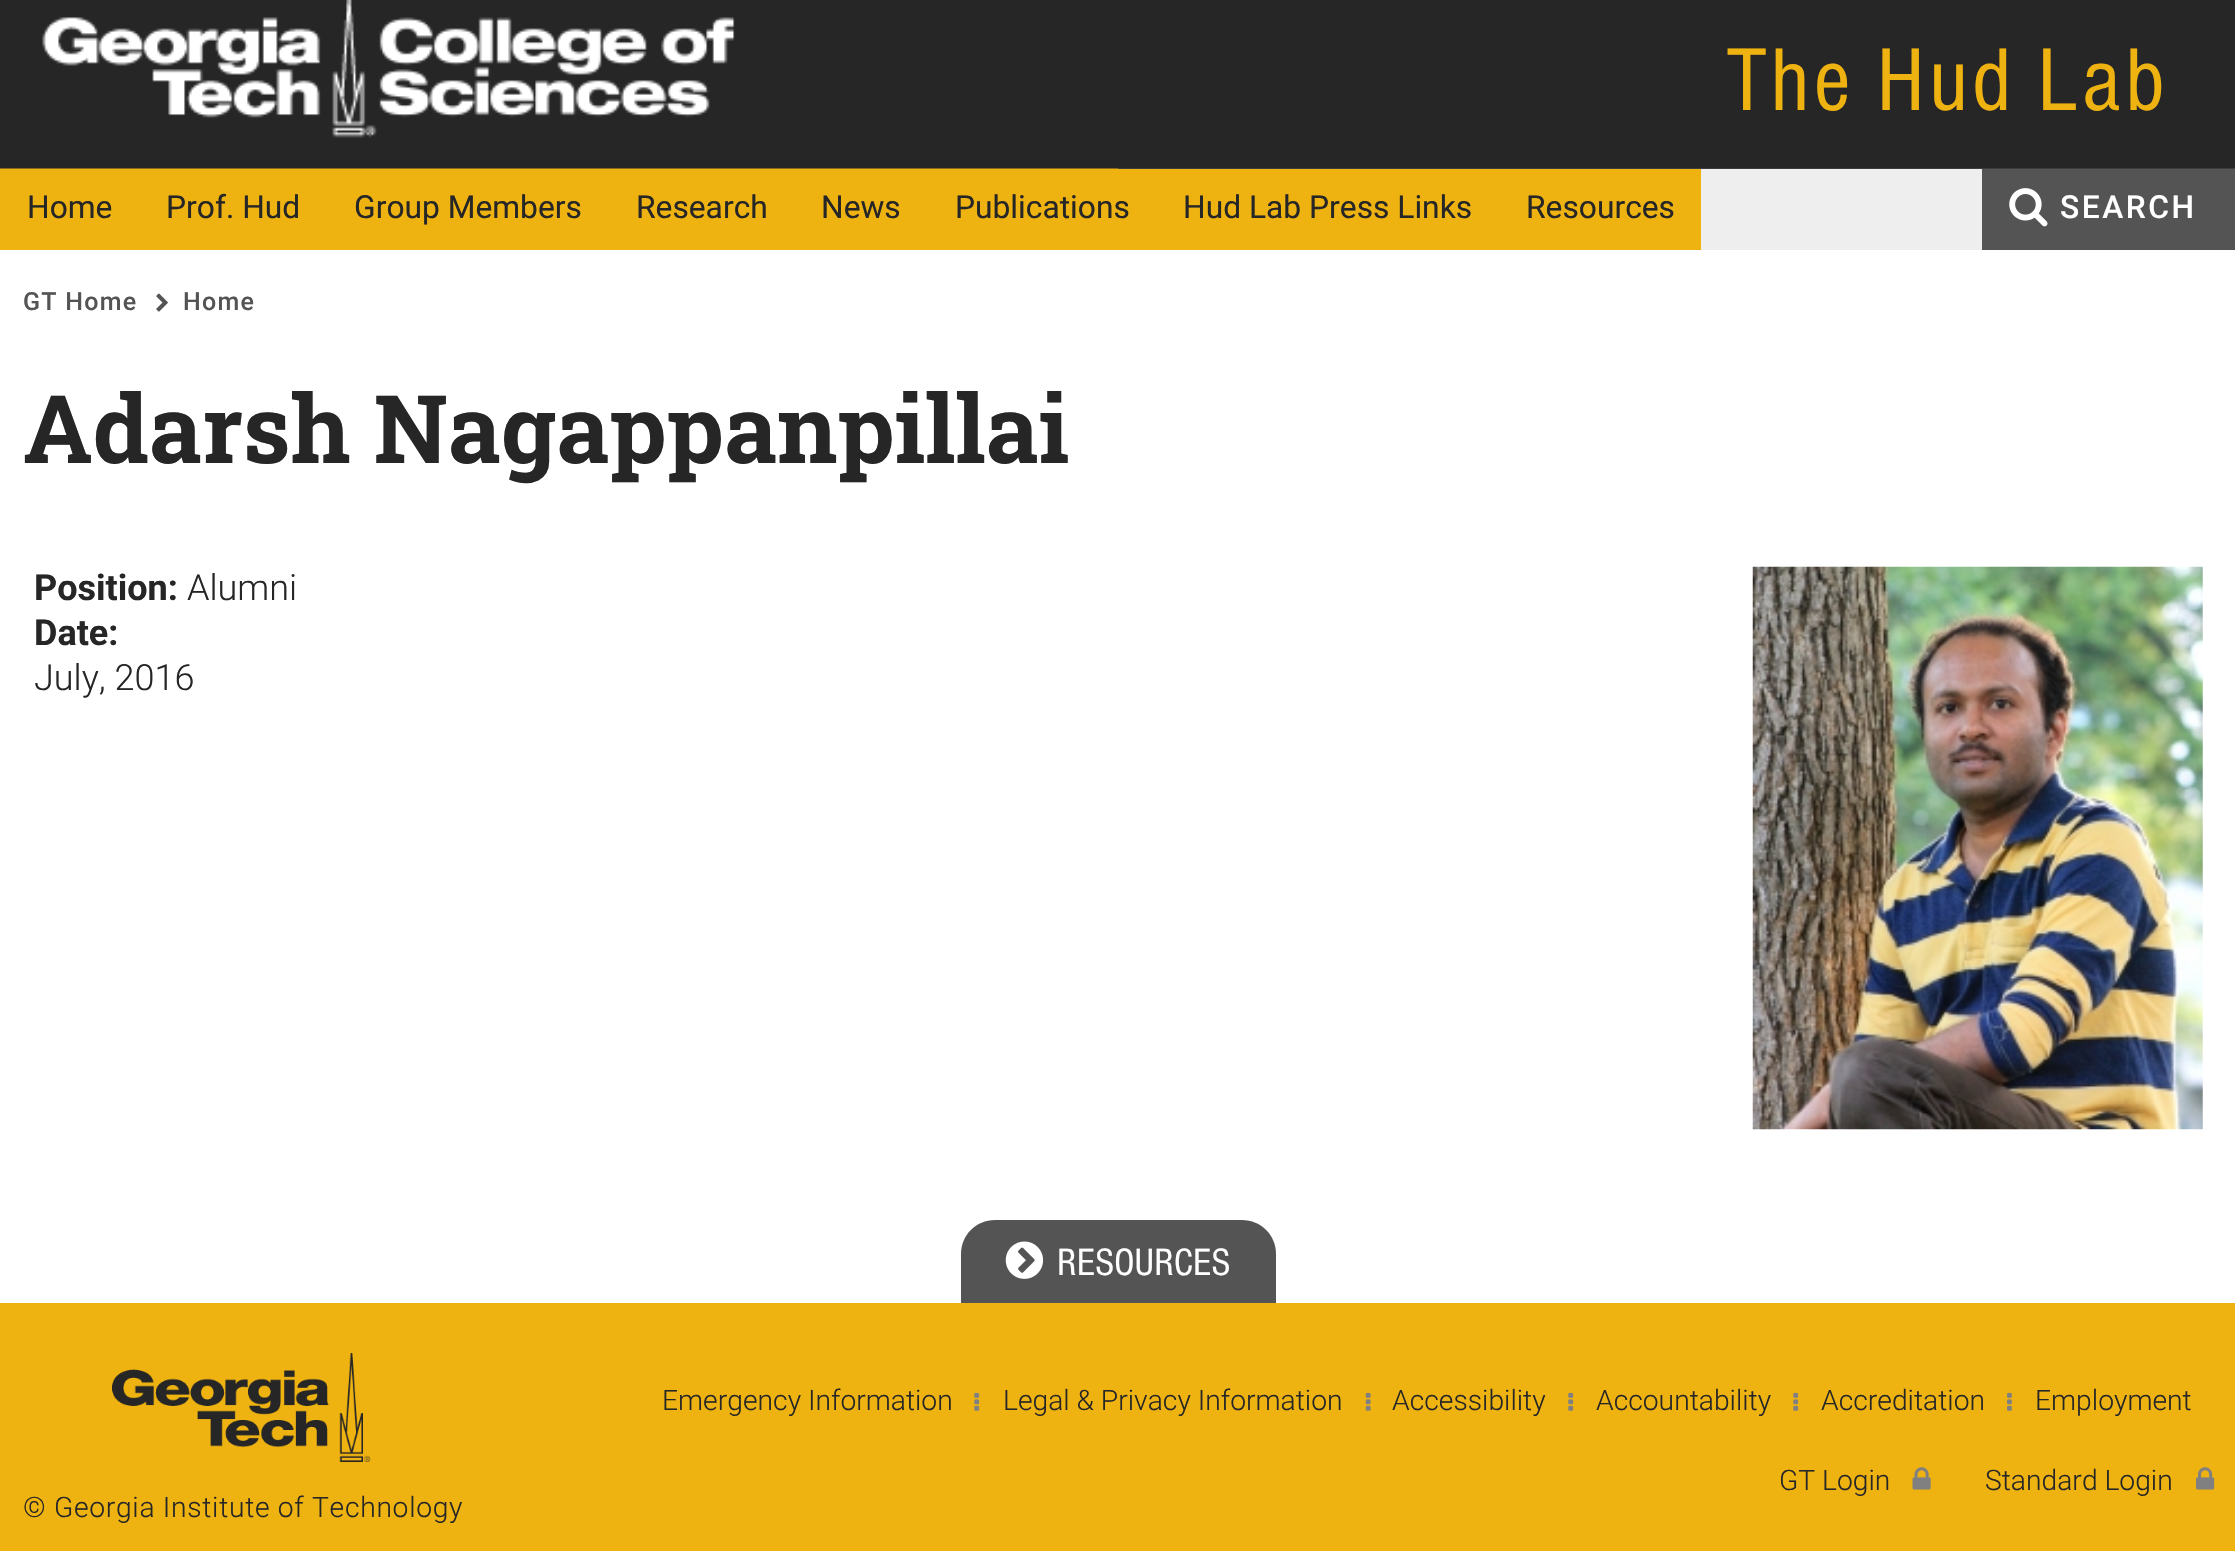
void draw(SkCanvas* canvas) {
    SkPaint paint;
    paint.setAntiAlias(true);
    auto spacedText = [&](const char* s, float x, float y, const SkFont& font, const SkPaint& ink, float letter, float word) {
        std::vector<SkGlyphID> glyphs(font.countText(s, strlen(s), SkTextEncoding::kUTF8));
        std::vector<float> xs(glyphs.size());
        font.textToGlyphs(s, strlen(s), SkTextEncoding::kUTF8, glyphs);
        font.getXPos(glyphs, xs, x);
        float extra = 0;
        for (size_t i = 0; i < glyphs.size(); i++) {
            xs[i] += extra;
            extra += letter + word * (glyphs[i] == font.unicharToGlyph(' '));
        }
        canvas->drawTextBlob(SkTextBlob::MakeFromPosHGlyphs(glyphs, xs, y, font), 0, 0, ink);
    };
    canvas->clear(0xFFFFFFFF);
    paint.setColor(0xFF262626);
    canvas->drawRect(SkRect::MakeXYWH(0, 0, 2235, 169), paint);
    canvas->drawImageRect(SkImages::DeferredFromEncodedData(SkData::MakeFromFileName("img1.png")), SkRect::MakeXYWH(42, 0, 693, 138), SkSamplingOptions());
    SkFont font1(fontMgr->matchFamilyStyle("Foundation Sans", SkFontStyle::Normal()), 92.25f);
    font1.setSubpixel(true);
    paint.setColor(0xFFEEB211);
    spacedText("The Hud Lab", 1727, 110, font1, paint, 4.6f, 0);
    canvas->drawImageRect(SkImages::DeferredFromEncodedData(SkData::MakeFromFileName("img2.png")), SkRect::MakeXYWH(0, 168, 2235, 1), SkSamplingOptions());
    paint.setColor(0xFFEEEEEE);
    canvas->drawRect(SkRect::MakeXYWH(1701, 169, 281, 81), paint);
    paint.setColor(0xFFEEB211);
    canvas->drawRect(SkRect::MakeXYWH(0, 169, 1701, 81), paint);
    SkFont font2(fontMgr->matchFamilyStyle("Roboto", SkFontStyle::Normal()), 31.75f);
    font2.setSubpixel(true);
    paint.setColor(0xFF262626);
    canvas->drawString("Home", 27, 218, font2, paint);
    canvas->drawString("Prof. Hud", 166, 218, font2, paint);
    canvas->drawString("Group Members", 354, 218, font2, paint);
    canvas->drawString("Research", 636, 218, font2, paint);
    canvas->drawString("News", 821, 218, font2, paint);
    canvas->drawString("Publications", 955, 218, font2, paint);
    canvas->drawString("Hud Lab Press Links", 1183, 218, font2, paint);
    canvas->drawString("Resources", 1526, 218, font2, paint);
    paint.setColor(0xFF545454);
    canvas->drawRect(SkRect::MakeXYWH(1982, 169, 253, 81), paint);
    canvas->drawImageRect(SkImages::DeferredFromEncodedData(SkData::MakeFromFileName("img3.png")), SkRect::MakeXYWH(2009, 188, 39, 39), SkSamplingOptions());
    SkFont font3(fontMgr->matchFamilyStyle("Roboto", SkFontStyle(500, SkFontStyle::kNormal_Width, SkFontStyle::kUpright_Slant)), 31.75f);
    font3.setSubpixel(true);
    paint.setColor(0xFFFFFFFF);
    spacedText("SEARCH", 2060, 218, font3, paint, 2.5f, 0);
    SkFont font4(fontMgr->matchFamilyStyle("Roboto", SkFontStyle(500, SkFontStyle::kNormal_Width, SkFontStyle::kUpright_Slant)), 25);
    font4.setSubpixel(true);
    paint.setColor(0xFF545454);
    spacedText("GT Home", 23, 310, font4, paint, 1.25f, 0);
    canvas->drawImageRect(SkImages::DeferredFromEncodedData(SkData::MakeFromFileName("img4.png")), SkRect::MakeXYWH(156, 293, 12, 19), SkSamplingOptions());
    spacedText("Home", 183, 310, font4, paint, 1.25f, 0);
    SkFont font5(fontMgr->matchFamilyStyle("Roboto Slab", SkFontStyle::Bold()), 94.5f);
    font5.setSubpixel(true);
    paint.setColor(0xFF262626);
    canvas->drawString("Adarsh Nagappanpillai", 23, 463, font5, paint);
    SkFont font6(fontMgr->matchFamilyStyle("Roboto", SkFontStyle::Bold()), 36);
    font6.setSubpixel(true);
    canvas->drawString("Position:", 34, 600, font6, paint);
    SkFont font7(fontMgr->matchFamilyStyle("Roboto", SkFontStyle(300, SkFontStyle::kNormal_Width, SkFontStyle::kUpright_Slant)), 36);
    font7.setSubpixel(true);
    canvas->drawString("Alumni", 187, 600, font7, paint);
    canvas->drawImageRect(SkImages::DeferredFromEncodedData(SkData::MakeFromFileName("img5.png")), SkRect::MakeXYWH(1752, 566, 451, 564), SkSamplingOptions());
    canvas->drawString("Date:", 34, 645, font6, paint);
    canvas->drawString("July, 2016", 34, 690, font7, paint);
    paint.setColor(0xFF545454);
    canvas->drawPath(SkPathBuilder().moveTo(995, 1220).lineTo(1242, 1220).cubicTo(1261, 1220, 1276, 1235, 1276, 1254).lineTo(1276, 1303).lineTo(961, 1303).lineTo(961, 1254).cubicTo(961, 1235, 976, 1220, 995, 1220).close().detach(), paint);
    canvas->drawImageRect(SkImages::DeferredFromEncodedData(SkData::MakeFromFileName("img6.png")), SkRect::MakeXYWH(1005, 1241, 39, 38), SkSamplingOptions());
    SkFont font8(fontMgr->matchFamilyStyle("Foundation Sans", SkFontStyle::Normal()), 39.5f);
    font8.setSubpixel(true);
    paint.setColor(0xFFFFFFFF);
    canvas->drawString("RESOURCES", 1057, 1275, font8, paint);
    paint.setColor(0xFFEEB211);
    canvas->drawRect(SkRect::MakeXYWH(0, 1303, 2235, 248), paint);
    SkFont font9(fontMgr->matchFamilyStyle("Roboto", SkFontStyle(300, SkFontStyle::kNormal_Width, SkFontStyle::kUpright_Slant)), 28.25f);
    font9.setSubpixel(true);
    paint.setColor(0xFF262626);
    canvas->drawString("Emergency Information", 662, 1410, font9, paint);
    canvas->drawImageRect(SkImages::DeferredFromEncodedData(SkData::MakeFromFileName("img7.png")), SkRect::MakeXYWH(974, 1392, 6, 19), SkSamplingOptions());
    canvas->drawString("Legal & Privacy Information", 1003, 1410, font9, paint);
    canvas->drawImageRect(SkImages::DeferredFromEncodedData(SkData::MakeFromFileName("img8.png")), SkRect::MakeXYWH(1365, 1392, 6, 19), SkSamplingOptions());
    canvas->drawString("Accessibility", 1392, 1410, font9, paint);
    canvas->drawImageRect(SkImages::DeferredFromEncodedData(SkData::MakeFromFileName("img7.png")), SkRect::MakeXYWH(1568, 1392, 6, 19), SkSamplingOptions());
    canvas->drawString("Accountability", 1596, 1410, font9, paint);
    canvas->drawImageRect(SkImages::DeferredFromEncodedData(SkData::MakeFromFileName("img7.png")), SkRect::MakeXYWH(1793, 1392, 6, 19), SkSamplingOptions());
    canvas->drawString("Accreditation", 1821, 1410, font9, paint);
    canvas->drawImageRect(SkImages::DeferredFromEncodedData(SkData::MakeFromFileName("img9.png")), SkRect::MakeXYWH(2007, 1392, 5, 19), SkSamplingOptions());
    canvas->drawString("Employment", 2035, 1410, font9, paint);
    canvas->drawString("GT Login", 1779, 1490, font9, paint);
    canvas->drawImageRect(SkImages::DeferredFromEncodedData(SkData::MakeFromFileName("img10.png")), SkRect::MakeXYWH(1912, 1467, 19, 23), SkSamplingOptions());
    canvas->drawString("Standard Login", 1985, 1490, font9, paint);
    canvas->drawImageRect(SkImages::DeferredFromEncodedData(SkData::MakeFromFileName("img11.png")), SkRect::MakeXYWH(2196, 1467, 19, 23), SkSamplingOptions());
    canvas->drawImageRect(SkImages::DeferredFromEncodedData(SkData::MakeFromFileName("img12.png")), SkRect::MakeXYWH(112, 1353, 259, 109), SkSamplingOptions());
    spacedText("© Georgia Institute of Technology", 23, 1517, font9, paint, 0.7f, 0);
}
